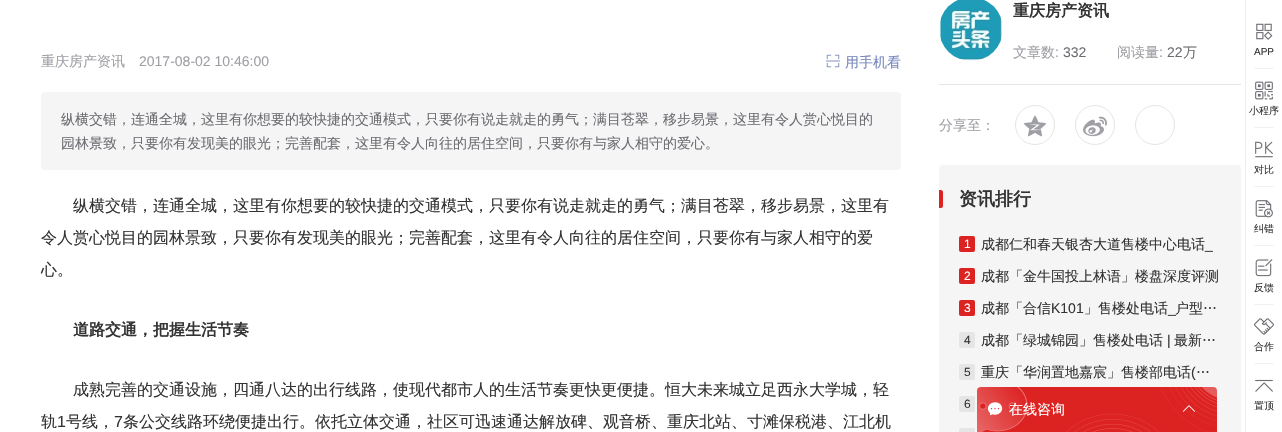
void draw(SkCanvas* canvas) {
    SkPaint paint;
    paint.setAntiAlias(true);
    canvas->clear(0xFFFFFFFF);
    SkFont font1(fontMgr->matchFamilyStyle("WenQuanYi Zen Hei", SkFontStyle(500, SkFontStyle::kNormal_Width, SkFontStyle::kUpright_Slant)), 14);
    font1.setSubpixel(true);
    paint.setColor(0xFF9F9FA6);
    canvas->drawString("重庆房产资讯", 41, 66, font1, paint);
    SkFont font2(fontMgr->matchFamilyStyle("Liberation Sans", SkFontStyle::Normal()), 14);
    font2.setSubpixel(true);
    canvas->drawString("2017-08-02 10:46:00", 139, 66, font2, paint);
    canvas->drawImageRect(SkImages::DeferredFromEncodedData(SkData::MakeFromFileName("img1.png")), SkRect::MakeXYWH(826, 54, 14, 14), SkSamplingOptions());
    paint.setColor(0xFF7788BB);
    canvas->drawString("用手机看", 845, 67, font1, paint);
    paint.setColor(0xFFF5F5F6);
    canvas->drawRoundRect(SkRect::MakeXYWH(41, 92, 860, 78), 4, 4, paint);
    paint.setColor(0xFF6D6D73);
    canvas->drawString("纵横交错，连通全城，这里有你想要的较快捷的交通模式，只要你有说走就走的勇气；满目苍翠，移步易景，这里有令人赏心悦目的", 61, 124, font1, paint);
    canvas->drawString("园林景致，只要你有发现美的眼光；完善配套，这里有令人向往的居住空间，只要你有与家人相守的爱心。", 61, 148, font1, paint);
    SkFont font3(fontMgr->matchFamilyStyle("WenQuanYi Zen Hei", SkFontStyle(500, SkFontStyle::kNormal_Width, SkFontStyle::kUpright_Slant)), 16);
    font3.setSubpixel(true);
    paint.setColor(0xFF333333);
    canvas->drawString("纵横交错，连通全城，这里有你想要的较快捷的交通模式，只要你有说走就走的勇气；满目苍翠，移步易景，这里有", 73, 211, font3, paint);
    canvas->drawString("令人赏心悦目的园林景致，只要你有发现美的眼光；完善配套，这里有令人向往的居住空间，只要你有与家人相守的爱", 41, 243, font3, paint);
    canvas->drawString("心。", 41, 275, font3, paint);
    SkFont font4(fontMgr->matchFamilyStyle("WenQuanYi Zen Hei", SkFontStyle::Bold()), 16);
    font4.setSubpixel(true);
    canvas->drawString("道路交通，把握生活节奏", 73, 335, font4, paint);
    canvas->drawString("成熟完善的交通设施，四通八达的出行线路，使现代都市人的生活节奏更快更便捷。恒大未来城立足西永大学城，轻", 73, 395, font3, paint);
    canvas->drawString("轨", 41, 427, font3, paint);
    SkFont font5(fontMgr->matchFamilyStyle("Liberation Sans", SkFontStyle::Normal()), 16);
    font5.setSubpixel(true);
    canvas->drawString("1", 57, 427, font5, paint);
    canvas->drawString("号线，", 66, 427, font3, paint);
    canvas->drawString("7", 114, 427, font5, paint);
    canvas->drawString("条公交线路环绕便捷出行。依托立体交通，社区可迅速通达解放碑、观音桥、重庆北站、寸滩保税港、江北机", 123, 427, font3, paint);
    paint.setColor(0xFFE5E5E5);
    canvas->drawRect(SkRect::MakeXYWH(939, 84, 302, 1), paint);
    canvas->drawImageRect(SkImages::DeferredFromEncodedData(SkData::MakeFromFileName("img2.png")), SkRect::MakeXYWH(939, 0, 64, 61), SkSamplingOptions());
    paint.setColor(0xFF333333);
    canvas->drawString("重庆房产资讯", 1013, 16, font4, paint);
    paint.setColor(0xFF9F9FA6);
    canvas->drawString("文章数", 1013, 57, font1, paint);
    canvas->drawString(":", 1055, 57, font2, paint);
    paint.setColor(0xFF6D6D73);
    canvas->drawString("332", 1063, 57, font2, paint);
    paint.setColor(0xFF9F9FA6);
    canvas->drawString("阅读量", 1117, 57, font1, paint);
    canvas->drawString(":", 1159, 57, font2, paint);
    paint.setColor(0xFF6D6D73);
    canvas->drawString("22", 1167, 57, font2, paint);
    canvas->drawString("万", 1183, 57, font1, paint);
    paint.setColor(0xFF9F9FA6);
    canvas->drawString("分享至：", 939, 130, font1, paint);
    paint.setStyle(SkPaint::kStroke_Style);
    paint.setStrokeWidth(1);
    paint.setColor(0xFFE5E5E5);
    canvas->drawCircle(1035, 125, 19.5f, paint);
    canvas->drawImageRect(SkImages::DeferredFromEncodedData(SkData::MakeFromFileName("img3.png")), SkRect::MakeXYWH(1023, 115, 24, 22), SkSamplingOptions());
    canvas->drawCircle(1095, 125, 19.5f, paint);
    canvas->drawImageRect(SkImages::DeferredFromEncodedData(SkData::MakeFromFileName("img4.png")), SkRect::MakeXYWH(1083, 116, 24, 21), SkSamplingOptions());
    canvas->drawCircle(1155, 125, 19.5f, paint);
    paint.setStyle(SkPaint::kFill_Style);
    paint.setColor(0xFFF5F5F6);
    canvas->drawRoundRect(SkRect::MakeXYWH(939, 165, 302, 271), 4, 4, paint);
    paint.setColor(0xFFDD2222);
    canvas->drawPath(SkPathBuilder().moveTo(939, 190).lineTo(941, 190).cubicTo(942, 190, 943, 191, 943, 192).lineTo(943, 206).cubicTo(943, 207, 942, 208, 941, 208).lineTo(939, 208).close().detach(), paint);
    SkFont font6(fontMgr->matchFamilyStyle("WenQuanYi Zen Hei", SkFontStyle::Bold()), 18);
    font6.setSubpixel(true);
    paint.setColor(0xFF333333);
    canvas->drawString("资讯排行", 959, 205, font6, paint);
    paint.setColor(0xFFDD2222);
    canvas->drawRoundRect(SkRect::MakeXYWH(959, 236, 16, 16), 2, 2, paint);
    SkFont font7(fontMgr->matchFamilyStyle("Liberation Sans", SkFontStyle::Normal()), 12);
    font7.setSubpixel(true);
    paint.setColor(0xFFFFFFFF);
    canvas->drawString("1", 964, 248, font7, paint);
    paint.setColor(0xFF333333);
    canvas->drawString("成都仁和春天银杏大道售楼中心电话", 981, 249, font1, paint);
    canvas->drawString("_", 1205, 249, font2, paint);
    paint.setColor(0xFFDD2222);
    canvas->drawRoundRect(SkRect::MakeXYWH(959, 268, 16, 16), 2, 2, paint);
    paint.setColor(0xFFFFFFFF);
    canvas->drawString("2", 964, 280, font7, paint);
    paint.setColor(0xFF333333);
    canvas->drawString("成都「金牛国投上林语」楼盘深度评测", 981, 281, font1, paint);
    paint.setColor(0xFFDD2222);
    canvas->drawRoundRect(SkRect::MakeXYWH(959, 300, 16, 16), 2, 2, paint);
    paint.setColor(0xFFFFFFFF);
    canvas->drawString("3", 964, 312, font7, paint);
    paint.setColor(0xFF333333);
    canvas->drawString("成都「合信", 981, 313, font1, paint);
    canvas->drawString("K101", 1051, 313, font2, paint);
    canvas->drawString("」售楼处电话", 1084, 313, font1, paint);
    canvas->drawString("户型…", 1175, 313, font1, paint);
    canvas->drawString("_", 1168, 313, font2, paint);
    paint.setColor(0xFFE5E5E5);
    canvas->drawRoundRect(SkRect::MakeXYWH(959, 332, 16, 16), 2, 2, paint);
    paint.setColor(0xFF333333);
    canvas->drawString("4", 964, 344, font7, paint);
    canvas->drawString("成都「绿城锦园」售楼处电话", 981, 345, font1, paint);
    canvas->drawString("|", 1167, 345, font2, paint);
    canvas->drawString("最新…", 1174, 345, font1, paint);
    paint.setColor(0xFFE5E5E5);
    canvas->drawRoundRect(SkRect::MakeXYWH(959, 364, 16, 16), 2, 2, paint);
    paint.setColor(0xFF333333);
    canvas->drawString("5", 964, 376, font7, paint);
    canvas->drawString("重庆「华润置地嘉宸」售楼部电话", 981, 377, font1, paint);
    canvas->drawString("(", 1191, 377, font2, paint);
    canvas->drawString("…", 1196, 377, font1, paint);
    paint.setColor(0xFFE5E5E5);
    canvas->drawRoundRect(SkRect::MakeXYWH(959, 396, 16, 16), 2, 2, paint);
    paint.setColor(0xFF333333);
    canvas->drawString("6", 964, 408, font7, paint);
    paint.setColor(0xFFE5E5E5);
    canvas->drawRoundRect(SkRect::MakeXYWH(959, 428, 16, 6), 2, 2, paint);
    paint.setColor(0xFFEEEEEE);
    canvas->drawRect(SkRect::MakeXYWH(1245, 0, 1, 432), paint);
    canvas->drawImageRect(SkImages::DeferredFromEncodedData(SkData::MakeFromFileName("img5.png")), SkRect::MakeXYWH(1256, 23, 17, 17), SkSamplingOptions());
    SkFont font8(fontMgr->matchFamilyStyle("Liberation Sans", SkFontStyle::Normal()), 10);
    font8.setSubpixel(true);
    paint.setColor(0xFF333333);
    canvas->drawString("APP", 1254, 55, font8, paint);
    paint.setColor(0xFFF2F2F2);
    canvas->drawRect(SkRect::MakeXYWH(1254, 68, 20, 1), paint);
    canvas->drawImageRect(SkImages::DeferredFromEncodedData(SkData::MakeFromFileName("img6.png")), SkRect::MakeXYWH(1255, 81, 18, 19), SkSamplingOptions());
    SkFont font9(fontMgr->matchFamilyStyle("WenQuanYi Zen Hei", SkFontStyle(500, SkFontStyle::kNormal_Width, SkFontStyle::kUpright_Slant)), 10);
    font9.setSubpixel(true);
    paint.setColor(0xFF333333);
    canvas->drawString("小程序", 1249, 114, font9, paint);
    paint.setColor(0xFFF2F2F2);
    canvas->drawRect(SkRect::MakeXYWH(1254, 127, 20, 1), paint);
    canvas->drawImageRect(SkImages::DeferredFromEncodedData(SkData::MakeFromFileName("img7.png")), SkRect::MakeXYWH(1255, 141, 18, 17), SkSamplingOptions());
    paint.setColor(0xFF333333);
    canvas->drawString("对比", 1254, 173, font9, paint);
    paint.setColor(0xFFF2F2F2);
    canvas->drawRect(SkRect::MakeXYWH(1254, 186, 20, 1), paint);
    canvas->drawImageRect(SkImages::DeferredFromEncodedData(SkData::MakeFromFileName("img8.png")), SkRect::MakeXYWH(1255, 200, 18, 18), SkSamplingOptions());
    paint.setColor(0xFF333333);
    canvas->drawString("纠错", 1254, 232, font9, paint);
    paint.setColor(0xFFF2F2F2);
    canvas->drawRect(SkRect::MakeXYWH(1254, 245, 20, 1), paint);
    canvas->drawImageRect(SkImages::DeferredFromEncodedData(SkData::MakeFromFileName("img9.png")), SkRect::MakeXYWH(1255, 259, 18, 18), SkSamplingOptions());
    paint.setColor(0xFF333333);
    canvas->drawString("反馈", 1254, 291, font9, paint);
    paint.setColor(0xFFF2F2F2);
    canvas->drawRect(SkRect::MakeXYWH(1254, 304, 20, 1), paint);
    canvas->drawImageRect(SkImages::DeferredFromEncodedData(SkData::MakeFromFileName("img10.png")), SkRect::MakeXYWH(1254, 318, 20, 17), SkSamplingOptions());
    paint.setColor(0xFF333333);
    canvas->drawString("合作", 1254, 350, font9, paint);
    paint.setColor(0xFFF2F2F2);
    canvas->drawRect(SkRect::MakeXYWH(1254, 363, 20, 1), paint);
    canvas->drawImageRect(SkImages::DeferredFromEncodedData(SkData::MakeFromFileName("img11.png")), SkRect::MakeXYWH(1255, 379, 18, 13), SkSamplingOptions());
    paint.setColor(0xFF333333);
    canvas->drawString("置顶", 1254, 409, font9, paint);
    canvas->drawImageRect(SkImages::DeferredFromEncodedData(SkData::MakeFromFileName("img12.png")), SkRect::MakeXYWH(977, 387, 240, 45), SkSamplingOptions());
    canvas->drawImageRect(SkImages::DeferredFromEncodedData(SkData::MakeFromFileName("img13.png")), SkRect::MakeXYWH(987, 402, 16, 14), SkSamplingOptions());
    paint.setColor(0xFFFFFFFF);
    canvas->drawString("在线咨询", 1009, 414, font1, paint);
    canvas->drawImageRect(SkImages::DeferredFromEncodedData(SkData::MakeFromFileName("img14.png")), SkRect::MakeXYWH(1182, 405, 13, 7), SkSamplingOptions());
}
